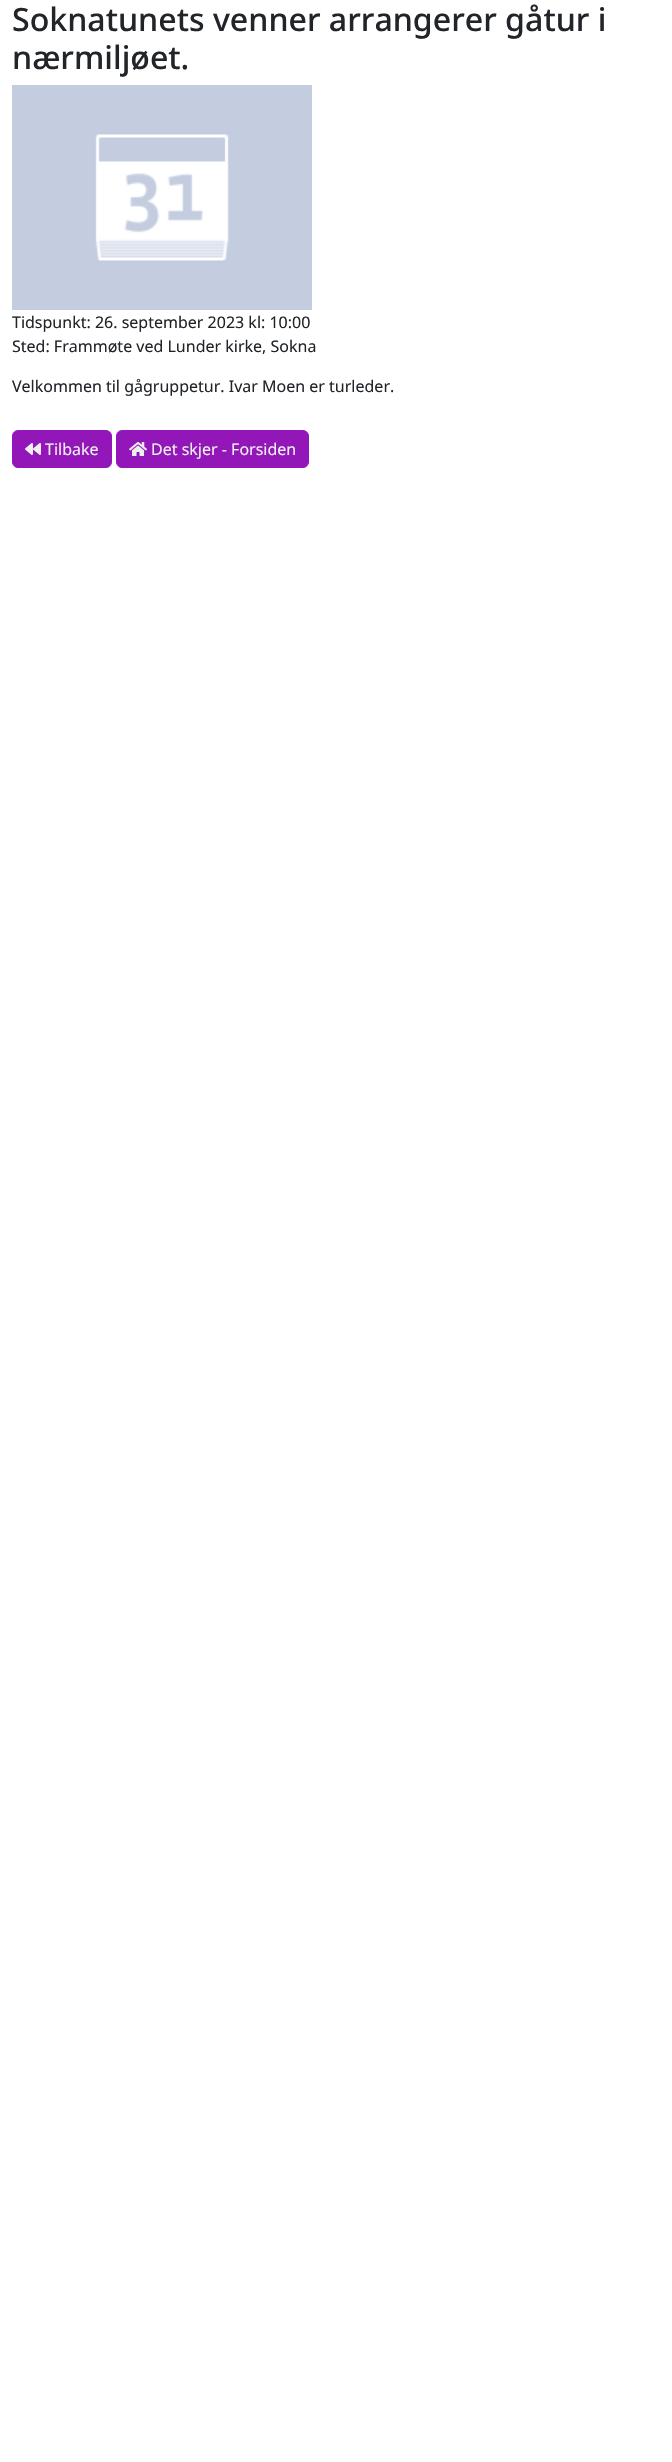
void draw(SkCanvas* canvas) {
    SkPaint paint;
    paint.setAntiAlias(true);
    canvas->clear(0xFFFFFFFF);
    SkFont font1(fontMgr->matchFamilyStyle("Noto Sans", SkFontStyle(500, SkFontStyle::kNormal_Width, SkFontStyle::kUpright_Slant)), 32.1f);
    font1.setSubpixel(true);
    paint.setColor(0xFF212529);
    canvas->drawString("Soknatunets venner arrangerer gåtur i", 12, 31, font1, paint);
    canvas->drawString("nærmiljøet.", 12, 69, font1, paint);
    canvas->drawImageRect(SkImages::DeferredFromEncodedData(SkData::MakeFromFileName("img1.png")), SkRect::MakeXYWH(12, 85, 300, 225), SkSamplingOptions());
    SkFont font2(fontMgr->matchFamilyStyle("Noto Sans", SkFontStyle::Normal()), 16);
    font2.setSubpixel(true);
    canvas->drawString("Tidspunkt: 26. september 2023 kl: 10:00", 12, 328, font2, paint);
    canvas->drawString("Sted: Frammøte ved Lunder kirke, Sokna", 12, 352, font2, paint);
    canvas->drawString("Velkommen til gågruppetur. Ivar Moen er turleder.", 12, 392, font2, paint);
    paint.setColor(0xFF9316B8);
    canvas->drawRoundRect(SkRect::MakeXYWH(12.5f, 430.5f, 99, 37), 5.5f, 5.5f, paint);
    paint.setStyle(SkPaint::kStroke_Style);
    paint.setStrokeWidth(1);
    canvas->drawRoundRect(SkRect::MakeXYWH(12.5f, 430.5f, 99, 37), 5.5f, 5.5f, paint);
    canvas->drawImageRect(SkImages::DeferredFromEncodedData(SkData::MakeFromFileName("img2.png")), SkRect::MakeXYWH(25, 443, 16, 12), SkSamplingOptions());
    paint.setStyle(SkPaint::kFill_Style);
    paint.setColor(0xFFEFEFEF);
    canvas->drawString("Tilbake", 45, 455, font2, paint);
    paint.setColor(0xFF9316B8);
    canvas->drawRoundRect(SkRect::MakeXYWH(116.5f, 430.5f, 192, 37), 5.5f, 5.5f, paint);
    paint.setStyle(SkPaint::kStroke_Style);
    canvas->drawRoundRect(SkRect::MakeXYWH(116.5f, 430.5f, 192, 37), 5.5f, 5.5f, paint);
    canvas->drawImageRect(SkImages::DeferredFromEncodedData(SkData::MakeFromFileName("img3.png")), SkRect::MakeXYWH(129, 442, 18, 14), SkSamplingOptions());
    paint.setStyle(SkPaint::kFill_Style);
    paint.setColor(0xFFEFEFEF);
    canvas->drawString("Det skjer - Forsiden", 151, 455, font2, paint);
}
